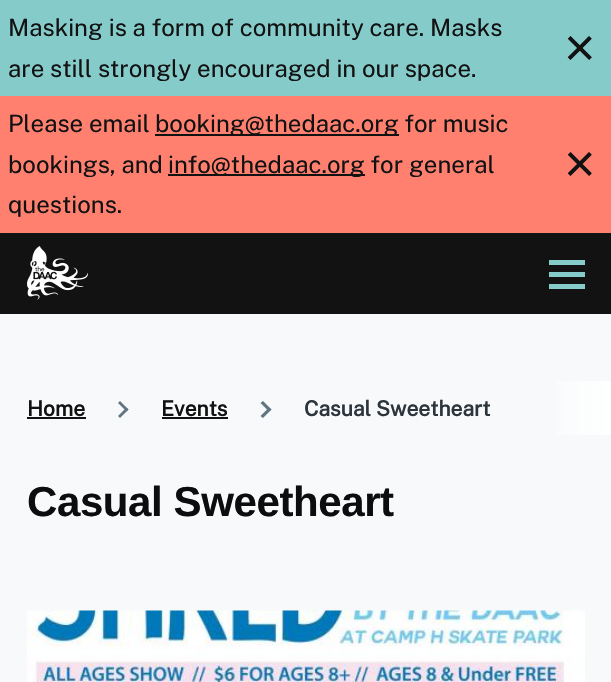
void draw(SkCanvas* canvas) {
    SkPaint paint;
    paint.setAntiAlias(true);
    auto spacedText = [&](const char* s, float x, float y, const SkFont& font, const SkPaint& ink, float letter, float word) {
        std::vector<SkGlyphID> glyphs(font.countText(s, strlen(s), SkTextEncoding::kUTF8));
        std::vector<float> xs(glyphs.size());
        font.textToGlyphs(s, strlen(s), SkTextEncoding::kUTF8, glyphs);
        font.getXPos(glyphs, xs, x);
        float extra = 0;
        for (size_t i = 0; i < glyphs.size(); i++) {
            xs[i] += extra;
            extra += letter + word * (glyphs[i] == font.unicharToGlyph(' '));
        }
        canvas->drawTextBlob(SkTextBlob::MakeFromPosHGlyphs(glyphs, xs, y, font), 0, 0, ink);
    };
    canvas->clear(0xFF85CBCA);
    SkFont font1(fontMgr->matchFamilyStyle("Public Sans", SkFontStyle(100, SkFontStyle::kNormal_Width, SkFontStyle::kUpright_Slant)), 24);
    font1.setSubpixel(true);
    paint.setColor(0xFF121212);
    canvas->drawString("Masking is a form of community care. Masks", 8, 36, font1, paint);
    canvas->drawString("are still strongly encouraged in our space.", 8, 77, font1, paint);
    SkFont font2(fontMgr->matchFamilyStyle("Liberation Sans", SkFontStyle::Normal()), 54);
    font2.setSubpixel(true);
    canvas->drawString("×", 564, 66, font2, paint);
    paint.setColor(0xFFFF806F);
    canvas->drawRect(SkRect::MakeXYWH(0, 96, 611, 137), paint);
    paint.setColor(0xFF121212);
    canvas->drawString("Please email", 8, 132, font1, paint);
    canvas->drawRect(SkRect::MakeXYWH(155, 134, 244, 2), paint);
    canvas->drawString("booking@thedaac.org for music", 155, 132, font1, paint);
    canvas->drawString("bookings, and", 8, 173, font1, paint);
    canvas->drawRect(SkRect::MakeXYWH(168, 174, 197, 2), paint);
    canvas->drawString("info@thedaac.org for general", 168, 173, font1, paint);
    canvas->drawString("questions.", 8, 213, font1, paint);
    canvas->drawString("×", 564, 182, font2, paint);
    paint.setColor(0xFFF7F9FA);
    canvas->drawRect(SkRect::MakeXYWH(0, 314, 611, 368), paint);
    paint.setColor(0xFF121212);
    canvas->drawRect(SkRect::MakeXYWH(0, 233, 611, 81), paint);
    canvas->drawImageRect(SkImages::DeferredFromEncodedData(SkData::MakeFromFileName("img1.png")), SkRect::MakeXYWH(27, 246, 61, 54), SkSamplingOptions());
    paint.setColor(0xFF85CBCA);
    canvas->drawRect(SkRect::MakeXYWH(549, 272, 36, 5), paint);
    canvas->drawRect(SkRect::MakeXYWH(549, 260, 36, 5), paint);
    canvas->drawRect(SkRect::MakeXYWH(549, 284, 36, 5), paint);
    SkFont font3(fontMgr->matchFamilyStyle("Public Sans", SkFontStyle::Bold()), 21);
    font3.setSubpixel(true);
    paint.setColor(0xFF121212);
    canvas->drawString("Home", 27, 416, font3, paint);
    canvas->drawRect(SkRect::MakeXYWH(27, 417, 59, 2), paint);
    paint.setColor(0xFF5F7581);
    canvas->drawPath(SkPathBuilder().moveTo(120, 401).lineTo(128.5f, 409.5f).lineTo(126.5f, 411.5f).lineTo(118, 403).close().detach(), paint);
    canvas->drawPath(SkPathBuilder().moveTo(126.5f, 407.5f).lineTo(128.5f, 409.5f).lineTo(120, 418).lineTo(118, 416).close().detach(), paint);
    paint.setColor(0xFF121212);
    canvas->drawString("Events", 161, 416, font3, paint);
    canvas->drawRect(SkRect::MakeXYWH(162, 417, 66, 2), paint);
    paint.setColor(0xFF5F7581);
    canvas->drawPath(SkPathBuilder().moveTo(263, 401).lineTo(271.5f, 409.5f).lineTo(269, 411.5f).lineTo(260.5f, 403).close().detach(), paint);
    canvas->drawPath(SkPathBuilder().moveTo(269, 407.5f).lineTo(271.5f, 409.5f).lineTo(263, 418).lineTo(260.5f, 416).close().detach(), paint);
    paint.setColor(0xFF2B353B);
    canvas->drawString("Casual Sweetheart", 304, 416, font3, paint);
    {
        const SkColor colors[] = {0xFFFFFFFF, 0xFFF7F9FA};
        const float stops[] = {0, 1};
        const SkPoint ends[] = {{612, 408}, {531, 408}};
        paint.setShader(SkGradientShader::MakeLinear(ends, colors, stops, 2, SkTileMode::kClamp));
        paint.setAlpha(255);
    }
    canvas->drawRect(SkRect::MakeXYWH(556, 381, 55, 54), paint);
    SkFont font4(fontMgr->matchFamilyStyle("Liberation Sans", SkFontStyle::Bold()), 42);
    font4.setSubpixel(true);
    paint.setShader(nullptr);
    paint.setColor(0xFF0B0D0F);
    spacedText("Casual Sweetheart", 27, 516, font4, paint, -0.4f, 0);
    canvas->drawImageRect(SkImages::DeferredFromEncodedData(SkData::MakeFromFileName("img2.png")), SkRect::MakeXYWH(27, 610, 558, 72), SkSamplingOptions());
}
